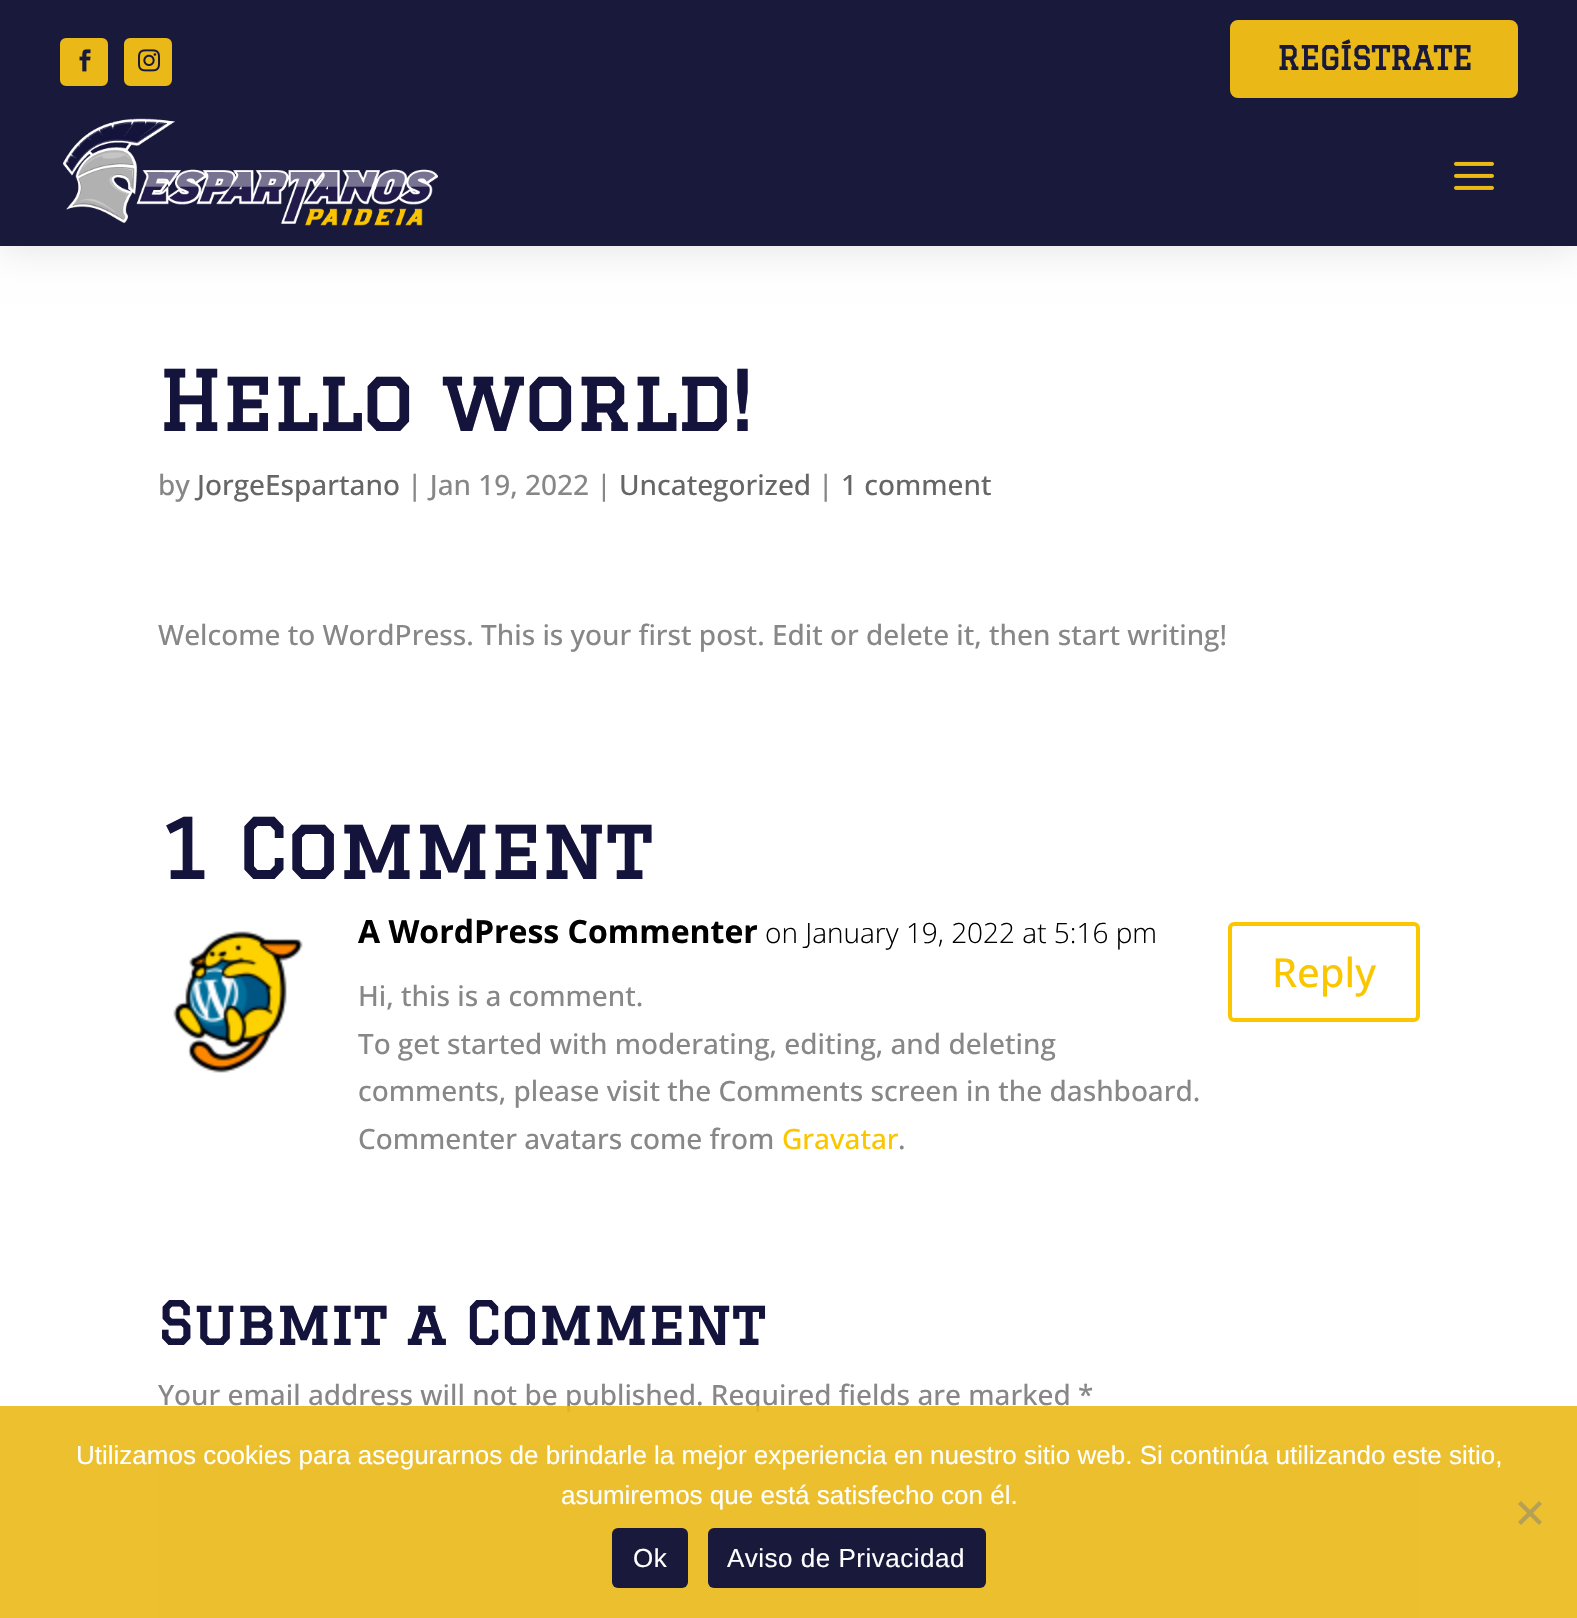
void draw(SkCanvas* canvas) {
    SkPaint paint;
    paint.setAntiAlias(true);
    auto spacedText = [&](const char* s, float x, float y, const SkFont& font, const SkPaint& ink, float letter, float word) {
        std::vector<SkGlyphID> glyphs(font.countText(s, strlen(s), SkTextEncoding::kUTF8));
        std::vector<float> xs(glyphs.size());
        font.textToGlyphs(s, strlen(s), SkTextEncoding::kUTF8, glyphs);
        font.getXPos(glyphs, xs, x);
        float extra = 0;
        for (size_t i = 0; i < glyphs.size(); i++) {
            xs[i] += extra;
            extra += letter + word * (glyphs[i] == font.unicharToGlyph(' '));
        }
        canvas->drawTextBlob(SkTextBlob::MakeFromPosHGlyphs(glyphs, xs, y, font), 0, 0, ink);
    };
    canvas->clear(0xFFFFFFFF);
    paint.setColor(0x1A000000);
    paint.setMaskFilter(SkMaskFilter::MakeBlur(kNormal_SkBlurStyle, 18));
    canvas->drawRect(SkRect::MakeXYWH(0, 4, 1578, 246), paint);
    paint.setMaskFilter(nullptr);
    paint.setColor(0xFF19193C);
    canvas->drawRect(SkRect::MakeXYWH(0, 0, 1577, 246), paint);
    paint.setColor(0xFFEAB917);
    canvas->drawRoundRect(SkRect::MakeXYWH(61, 39, 46, 46), 5, 5, paint);
    paint.setStyle(SkPaint::kStroke_Style);
    paint.setStrokeWidth(2);
    canvas->drawRoundRect(SkRect::MakeXYWH(61, 39, 46, 46), 5, 5, paint);
    canvas->drawImageRect(SkImages::DeferredFromEncodedData(SkData::MakeFromFileName("img1.png")), SkRect::MakeXYWH(79, 49, 12, 23), SkSamplingOptions());
    paint.setStyle(SkPaint::kFill_Style);
    canvas->drawRoundRect(SkRect::MakeXYWH(125, 39, 46, 46), 5, 5, paint);
    paint.setStyle(SkPaint::kStroke_Style);
    canvas->drawRoundRect(SkRect::MakeXYWH(125, 39, 46, 46), 5, 5, paint);
    canvas->drawImageRect(SkImages::DeferredFromEncodedData(SkData::MakeFromFileName("img2.png")), SkRect::MakeXYWH(138, 49, 22, 23), SkSamplingOptions());
    paint.setStyle(SkPaint::kFill_Style);
    canvas->drawRoundRect(SkRect::MakeXYWH(1231, 21, 286, 76), 7, 7, paint);
    paint.setStyle(SkPaint::kStroke_Style);
    canvas->drawRoundRect(SkRect::MakeXYWH(1231, 21, 286, 76), 7, 7, paint);
    SkFont font1(fontMgr->matchFamilyStyle("Graduate", SkFontStyle::Bold()), 32);
    font1.setSubpixel(true);
    paint.setStyle(SkPaint::kFill_Style);
    paint.setColor(0xFF19193C);
    canvas->drawString("REGÍSTRATE", 1277, 70, font1, paint);
    canvas->drawImageRect(SkImages::DeferredFromEncodedData(SkData::MakeFromFileName("img3.png")), SkRect::MakeXYWH(63, 118, 375, 108), SkSamplingOptions());
    canvas->drawImageRect(SkImages::DeferredFromEncodedData(SkData::MakeFromFileName("img4.png")), SkRect::MakeXYWH(1454, 161, 40, 29), SkSamplingOptions());
    SkFont font2(fontMgr->matchFamilyStyle("Graduate", SkFontStyle::Bold()), 80);
    font2.setSubpixel(true);
    paint.setColor(0xFF14133B);
    canvas->drawString("Hello world!", 158, 431, font2, paint);
    SkFont font3(fontMgr->matchFamilyStyle("Open Sans", SkFontStyle(500, SkFontStyle::kNormal_Width, SkFontStyle::kUpright_Slant)), 28);
    font3.setSubpixel(true);
    paint.setColor(0xFF878787);
    canvas->drawString("by", 158, 495, font3, paint);
    paint.setColor(0xFF666666);
    canvas->drawString("JorgeEspartano", 197, 495, font3, paint);
    paint.setColor(0xFF878787);
    canvas->drawString("| Jan 19, 2022 |", 407, 495, font3, paint);
    paint.setColor(0xFF666666);
    canvas->drawString("Uncategorized", 619, 495, font3, paint);
    paint.setColor(0xFF878787);
    canvas->drawString("|", 818, 495, font3, paint);
    paint.setColor(0xFF666666);
    canvas->drawString("1 comment", 841, 495, font3, paint);
    paint.setColor(0xFF878787);
    canvas->drawString("Welcome to WordPress. This is your first post. Edit or delete it, then start writing!", 158, 645, font3, paint);
    paint.setColor(0xFF14133B);
    canvas->drawString("1 Comment", 158, 879, font2, paint);
    canvas->drawImageRect(SkImages::DeferredFromEncodedData(SkData::MakeFromFileName("img5.png")), SkRect::MakeXYWH(173, 931, 130, 142), SkSamplingOptions());
    SkFont font4(fontMgr->matchFamilyStyle("Open Sans", SkFontStyle::Bold()), 32);
    font4.setSubpixel(true);
    paint.setColor(0xFF000000);
    canvas->drawString("A WordPress Commenter", 358, 943, font4, paint);
    SkFont font5(fontMgr->matchFamilyStyle("Open Sans", SkFontStyle(300, SkFontStyle::kNormal_Width, SkFontStyle::kUpright_Slant)), 28);
    font5.setSubpixel(true);
    canvas->drawString("on January 19, 2022 at 5:16 pm", 765, 943, font5, paint);
    paint.setStyle(SkPaint::kStroke_Style);
    paint.setStrokeWidth(4);
    paint.setColor(0xFFFAC600);
    canvas->drawRoundRect(SkRect::MakeXYWH(1230, 924, 188, 96), 4, 4, paint);
    SkFont font6(fontMgr->matchFamilyStyle("Open Sans", SkFontStyle(500, SkFontStyle::kNormal_Width, SkFontStyle::kUpright_Slant)), 40);
    font6.setSubpixel(true);
    paint.setStyle(SkPaint::kFill_Style);
    canvas->drawString("Reply", 1272, 987, font6, paint);
    paint.setColor(0xFF878787);
    canvas->drawString("Hi, this is a comment.", 358, 1006, font3, paint);
    canvas->drawString("To get started with moderating, editing, and deleting", 358, 1054, font3, paint);
    canvas->drawString("comments, please visit the Comments screen in the dashboard.", 358, 1101, font3, paint);
    canvas->drawString("Commenter avatars come from", 358, 1149, font3, paint);
    paint.setColor(0xFFFAC600);
    canvas->drawString("Gravatar", 782, 1149, font3, paint);
    paint.setColor(0xFF878787);
    canvas->drawString(".", 898, 1149, font3, paint);
    SkFont font7(fontMgr->matchFamilyStyle("Graduate", SkFontStyle::Bold()), 58);
    font7.setSubpixel(true);
    paint.setColor(0xFF14133B);
    canvas->drawString("Submit a Comment", 158, 1345, font7, paint);
    paint.setColor(0xFF878787);
    canvas->drawString("Your email address will not be published. Required fields are marked *", 158, 1405, font3, paint);
    paint.setColor(0xFFEEEEEE);
    canvas->drawRect(SkRect::MakeXYWH(158, 1446, 1262, 172), paint);
    paint.setColor(0xE6EAB917);
    canvas->drawRect(SkRect::MakeXYWH(0, 1406, 1577, 212), paint);
    SkFont font8(fontMgr->matchFamilyStyle("Liberation Sans", SkFontStyle::Normal()), 26);
    font8.setSubpixel(true);
    paint.setColor(0xFFFFFFFF);
    canvas->drawString("Utilizamos cookies para asegurarnos de brindarle la mejor experiencia en nuestro sitio web. Si continúa utilizando este sitio,", 76, 1464, font8, paint);
    canvas->drawString("asumiremos que está satisfecho con él.", 561, 1504, font8, paint);
    paint.setColor(0xFFB6A057);
    canvas->drawPath(SkPathBuilder().moveTo(1539, 1501).lineTo(1542, 1504).lineTo(1521, 1525).lineTo(1518, 1522).close().detach(), paint);
    canvas->drawPath(SkPathBuilder().moveTo(1518, 1504).lineTo(1521, 1501).lineTo(1542, 1522).lineTo(1539, 1525).close().detach(), paint);
    paint.setColor(0xFF19193C);
    canvas->drawRoundRect(SkRect::MakeXYWH(612, 1528, 76, 60), 6, 6, paint);
    paint.setColor(0xFFFFFFFF);
    spacedText("Ok", 633, 1567, font8, paint, 0.5f, 0);
    paint.setColor(0xFF19193C);
    canvas->drawRoundRect(SkRect::MakeXYWH(708, 1528, 278, 60), 6, 6, paint);
    paint.setColor(0xFFFFFFFF);
    spacedText("Aviso de Privacidad", 727, 1567, font8, paint, 0.5f, 0);
}
